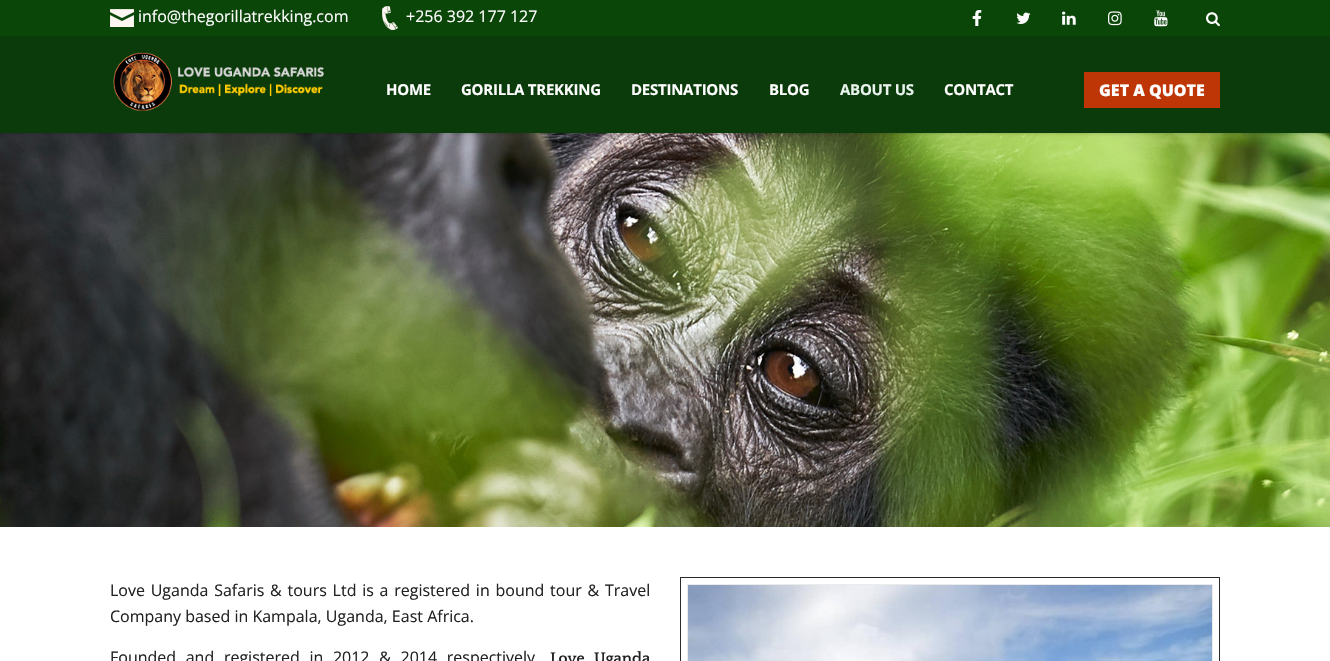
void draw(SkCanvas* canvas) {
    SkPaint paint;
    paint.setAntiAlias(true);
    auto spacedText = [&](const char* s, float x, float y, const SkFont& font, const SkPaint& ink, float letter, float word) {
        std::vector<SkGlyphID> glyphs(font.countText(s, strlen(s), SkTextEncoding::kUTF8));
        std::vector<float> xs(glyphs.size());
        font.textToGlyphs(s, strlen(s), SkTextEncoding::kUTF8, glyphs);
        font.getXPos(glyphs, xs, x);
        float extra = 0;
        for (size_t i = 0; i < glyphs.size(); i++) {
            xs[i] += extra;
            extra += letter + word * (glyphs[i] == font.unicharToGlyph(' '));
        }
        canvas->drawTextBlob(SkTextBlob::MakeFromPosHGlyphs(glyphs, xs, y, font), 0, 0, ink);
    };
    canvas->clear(0xFFFFFFFF);
    canvas->drawImageRect(SkImages::DeferredFromEncodedData(SkData::MakeFromFileName("img10.png")), SkRect::MakeXYWH(0, 133, 1330, 394), SkSamplingOptions());
    paint.setColor(0x26000000);
    paint.setMaskFilter(SkMaskFilter::MakeBlur(kNormal_SkBlurStyle, 1.5f));
    canvas->drawRect(SkRect::MakeXYWH(0, 1, 1330, 133), paint);
    paint.setMaskFilter(nullptr);
    paint.setColor(0xFF0B4609);
    canvas->drawRect(SkRect::MakeXYWH(0, 0, 1330, 36), paint);
    canvas->drawImageRect(SkImages::DeferredFromEncodedData(SkData::MakeFromFileName("img1.png")), SkRect::MakeXYWH(110, 9, 24, 18), SkSamplingOptions());
    SkFont font1(fontMgr->matchFamilyStyle("Open Sans", SkFontStyle::Normal()), 16);
    font1.setSubpixel(true);
    paint.setColor(0xFFFFFFFF);
    canvas->drawString("info@thegorillatrekking.com", 138, 22, font1, paint);
    canvas->drawImageRect(SkImages::DeferredFromEncodedData(SkData::MakeFromFileName("img2.png")), SkRect::MakeXYWH(382, 6, 16, 24), SkSamplingOptions());
    canvas->drawString("+256 392 177 127", 406, 22, font1, paint);
    canvas->drawImageRect(SkImages::DeferredFromEncodedData(SkData::MakeFromFileName("img3.png")), SkRect::MakeXYWH(972, 10, 10, 16), SkSamplingOptions());
    canvas->drawImageRect(SkImages::DeferredFromEncodedData(SkData::MakeFromFileName("img4.png")), SkRect::MakeXYWH(1016, 12, 15, 12), SkSamplingOptions());
    canvas->drawImageRect(SkImages::DeferredFromEncodedData(SkData::MakeFromFileName("img5.png")), SkRect::MakeXYWH(1062, 11, 14, 14), SkSamplingOptions());
    canvas->drawImageRect(SkImages::DeferredFromEncodedData(SkData::MakeFromFileName("img6.png")), SkRect::MakeXYWH(1108, 11, 14, 15), SkSamplingOptions());
    canvas->drawImageRect(SkImages::DeferredFromEncodedData(SkData::MakeFromFileName("img7.png")), SkRect::MakeXYWH(1154, 10, 14, 17), SkSamplingOptions());
    canvas->drawImageRect(SkImages::DeferredFromEncodedData(SkData::MakeFromFileName("img8.png")), SkRect::MakeXYWH(1206, 12, 14, 15), SkSamplingOptions());
    paint.setColor(0xFF0B3A0B);
    canvas->drawRect(SkRect::MakeXYWH(0, 36, 1330, 97), paint);
    canvas->drawImageRect(SkImages::DeferredFromEncodedData(SkData::MakeFromFileName("img9.png")), SkRect::MakeXYWH(113, 52, 211, 59), SkSamplingOptions());
    SkFont font2(fontMgr->matchFamilyStyle("Open Sans", SkFontStyle::Bold()), 15);
    font2.setSubpixel(true);
    paint.setColor(0xFFFFFFFF);
    spacedText("HOME", 386, 95, font2, paint, -0.25f, 0);
    spacedText("GORILLA TREKKING", 461, 95, font2, paint, -0.25f, 0);
    spacedText("DESTINATIONS", 631, 95, font2, paint, -0.25f, 0);
    spacedText("BLOG", 769, 95, font2, paint, -0.25f, 0);
    paint.setColor(0xFFE9F4EC);
    spacedText("ABOUT US", 840, 95, font2, paint, -0.25f, 0);
    paint.setColor(0xFFFFFFFF);
    spacedText("CONTACT", 944, 95, font2, paint, -0.25f, 0);
    paint.setColor(0xFFBF3606);
    canvas->drawRect(SkRect::MakeXYWH(1084, 72, 136, 36), paint);
    SkFont font3(fontMgr->matchFamilyStyle("Open Sans", SkFontStyle(800, SkFontStyle::kNormal_Width, SkFontStyle::kUpright_Slant)), 16);
    font3.setSubpixel(true);
    paint.setColor(0xFFFFFFFF);
    canvas->drawString("GET A QUOTE", 1099, 96, font3, paint);
    paint.setColor(0xFF222222);
    spacedText("Love Uganda Safaris & tours Ltd is a registered in bound tour & Travel", 110, 596, font1, paint, 0, 1.6f);
    canvas->drawString("Company based in Kampala, Uganda, East Africa.", 110, 622, font1, paint);
    spacedText("Founded and registered in 2012 & 2014 respectively", 110, 663, font1, paint, 0, 5.5f);
    SkFont font4(fontMgr->matchFamilyStyle("Quattrocento", SkFontStyle::Bold()), 16);
    font4.setSubpixel(true);
    spacedText("Love Uganda", 550, 663, font4, paint, 0, 5.5f);
    paint.setStyle(SkPaint::kStroke_Style);
    paint.setStrokeWidth(1);
    paint.setColor(0xFF2A2A2A);
    canvas->drawRect(SkRect::MakeXYWH(680.5f, 577.5f, 539, 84), paint);
    paint.setColor(0xFFEBEBEB);
    canvas->drawRect(SkRect::MakeXYWH(687.5f, 584.5f, 525, 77), paint);
    canvas->drawImageRect(SkImages::DeferredFromEncodedData(SkData::MakeFromFileName("img11.png")), SkRect::MakeXYWH(688, 585, 524, 76), SkSamplingOptions());
}
